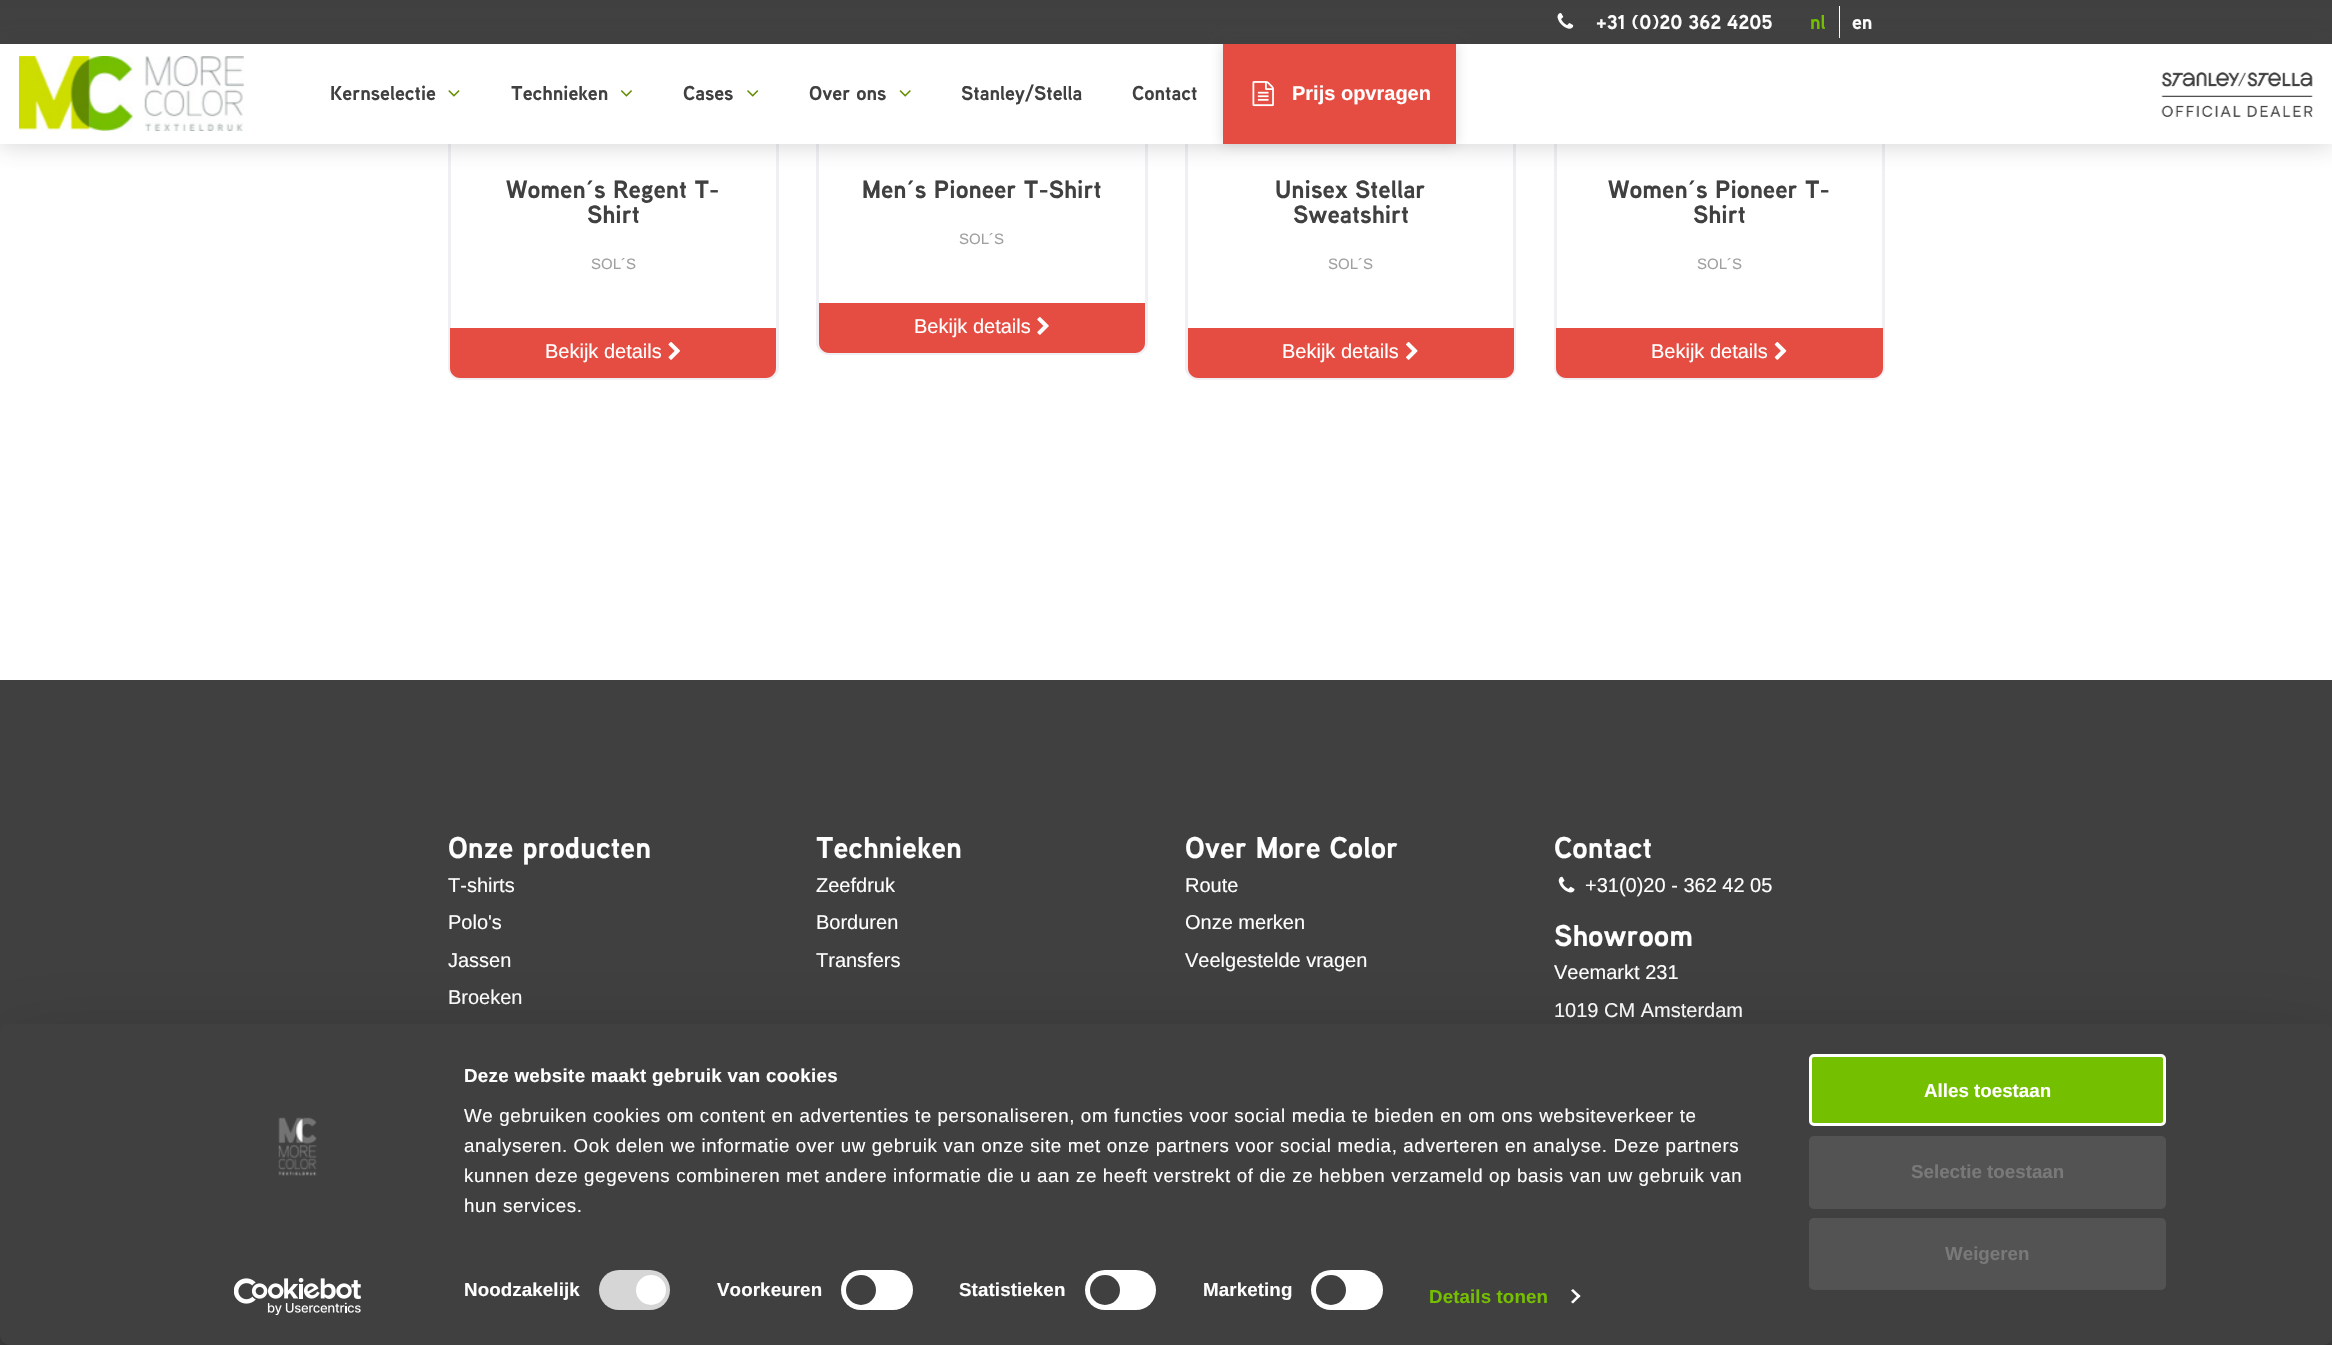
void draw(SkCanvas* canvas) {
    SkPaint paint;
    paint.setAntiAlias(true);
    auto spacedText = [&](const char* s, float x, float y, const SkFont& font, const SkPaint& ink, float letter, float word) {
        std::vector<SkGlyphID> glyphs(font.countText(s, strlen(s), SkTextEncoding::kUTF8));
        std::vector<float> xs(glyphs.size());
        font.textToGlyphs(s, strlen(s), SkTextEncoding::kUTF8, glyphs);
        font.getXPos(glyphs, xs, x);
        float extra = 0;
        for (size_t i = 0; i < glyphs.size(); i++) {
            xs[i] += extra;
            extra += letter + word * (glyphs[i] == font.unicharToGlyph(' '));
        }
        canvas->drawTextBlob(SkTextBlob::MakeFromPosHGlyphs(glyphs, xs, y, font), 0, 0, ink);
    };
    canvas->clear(0xFFFFFFFF);
    paint.setStyle(SkPaint::kStroke_Style);
    paint.setStrokeWidth(3);
    paint.setColor(0xFFEFEFF4);
    canvas->drawRoundRect(SkRect::MakeXYWH(449.5f, -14.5f, 328, 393), 11.5f, 11.5f, paint);
    canvas->drawRoundRect(SkRect::MakeXYWH(817.5f, -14.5f, 329, 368), 11.5f, 11.5f, paint);
    canvas->drawRoundRect(SkRect::MakeXYWH(1186.5f, -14.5f, 328, 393), 11.5f, 11.5f, paint);
    canvas->drawRoundRect(SkRect::MakeXYWH(1555.5f, -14.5f, 328, 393), 11.5f, 11.5f, paint);
    paint.setStyle(SkPaint::kFill_Style);
    paint.setColor(0xFF404040);
    canvas->drawRect(SkRect::MakeXYWH(0, 0, 2332, 44), paint);
    canvas->drawImageRect(SkImages::DeferredFromEncodedData(SkData::MakeFromFileName("img1.png")), SkRect::MakeXYWH(1557, 13, 17, 16), SkSamplingOptions());
    SkFont font1(fontMgr->matchFamilyStyle("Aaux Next", SkFontStyle::Bold()), 20);
    font1.setSubpixel(true);
    paint.setColor(0xFFFFFFFF);
    canvas->drawString("+31 (0)20 362 4205", 1596, 29, font1, paint);
    canvas->drawRect(SkRect::MakeXYWH(1839, 6, 1, 32), paint);
    paint.setColor(0xFF75BF00);
    canvas->drawString("nl", 1810, 29, font1, paint);
    paint.setColor(0xFFFFFFFF);
    canvas->drawString("en", 1852, 29, font1, paint);
    paint.setColor(0x40404040);
    paint.setMaskFilter(SkMaskFilter::MakeBlur(kNormal_SkBlurStyle, 12.5f));
    canvas->drawRect(SkRect::MakeXYWH(0, 44, 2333, 100), paint);
    paint.setMaskFilter(nullptr);
    paint.setColor(0xFFFFFFFF);
    canvas->drawRect(SkRect::MakeXYWH(0, 44, 2332, 100), paint);
    canvas->drawImageRect(SkImages::DeferredFromEncodedData(SkData::MakeFromFileName("img2.png")), SkRect::MakeXYWH(19, 56, 225, 75), SkSamplingOptions());
    paint.setColor(0xFF404040);
    canvas->drawString("Kernselectie", 330, 100, font1, paint);
    canvas->drawImageRect(SkImages::DeferredFromEncodedData(SkData::MakeFromFileName("img3.png")), SkRect::MakeXYWH(448, 90, 12, 7), SkSamplingOptions());
    canvas->drawString("Technieken", 511, 100, font1, paint);
    canvas->drawImageRect(SkImages::DeferredFromEncodedData(SkData::MakeFromFileName("img4.png")), SkRect::MakeXYWH(620, 90, 12, 7), SkSamplingOptions());
    canvas->drawString("Cases", 683, 100, font1, paint);
    canvas->drawImageRect(SkImages::DeferredFromEncodedData(SkData::MakeFromFileName("img5.png")), SkRect::MakeXYWH(747, 90, 12, 7), SkSamplingOptions());
    canvas->drawString("Over ons", 809, 100, font1, paint);
    canvas->drawImageRect(SkImages::DeferredFromEncodedData(SkData::MakeFromFileName("img6.png")), SkRect::MakeXYWH(899, 90, 12, 7), SkSamplingOptions());
    canvas->drawString("Stanley/Stella", 961, 100, font1, paint);
    canvas->drawString("Contact", 1132, 100, font1, paint);
    paint.setColor(0x33404040);
    paint.setMaskFilter(SkMaskFilter::MakeBlur(kNormal_SkBlurStyle, 6));
    canvas->drawRect(SkRect::MakeXYWH(1223, 44, 233, 100), paint);
    paint.setMaskFilter(nullptr);
    paint.setColor(0xFFE54D42);
    canvas->drawRect(SkRect::MakeXYWH(1223, 44, 233, 100), paint);
    canvas->drawImageRect(SkImages::DeferredFromEncodedData(SkData::MakeFromFileName("img7.png")), SkRect::MakeXYWH(1252, 81, 22, 26), SkSamplingOptions());
    SkFont font2(fontMgr->matchFamilyStyle("Liberation Sans", SkFontStyle::Bold()), 20);
    font2.setSubpixel(true);
    paint.setColor(0xFFFFFFFF);
    canvas->drawString("Prijs opvragen", 1292, 100, font2, paint);
    canvas->drawImageRect(SkImages::DeferredFromEncodedData(SkData::MakeFromFileName("img8.png")), SkRect::MakeXYWH(2161, 72, 152, 45), SkSamplingOptions());
    SkFont font3(fontMgr->matchFamilyStyle("Aaux Next", SkFontStyle::Bold()), 25);
    font3.setSubpixel(true);
    paint.setColor(0xFF404040);
    canvas->drawString("Women´s Regent T-", 506, 198, font3, paint);
    canvas->drawString("Shirt", 587, 223, font3, paint);
    SkFont font4(fontMgr->matchFamilyStyle("Liberation Sans", SkFontStyle::Normal()), 15);
    font4.setSubpixel(true);
    paint.setColor(0xFFA0A0A0);
    canvas->drawString("SOL´S", 591, 269, font4, paint);
    paint.setColor(0xFFE54D42);
    canvas->drawPath(SkPathBuilder().moveTo(450, 328).lineTo(776, 328).lineTo(776, 368).cubicTo(776, 373.5f, 771.5f, 378, 766, 378).lineTo(460, 378).cubicTo(454.5f, 378, 450, 373.5f, 450, 368).close().detach(), paint);
    SkFont font5(fontMgr->matchFamilyStyle("Liberation Sans", SkFontStyle::Normal()), 20);
    font5.setSubpixel(true);
    paint.setColor(0xFFFFFFFF);
    canvas->drawString("Bekijk details", 545, 358, font5, paint);
    canvas->drawImageRect(SkImages::DeferredFromEncodedData(SkData::MakeFromFileName("img9.png")), SkRect::MakeXYWH(668, 342, 12, 18), SkSamplingOptions());
    paint.setColor(0xFF404040);
    canvas->drawString("Men´s Pioneer T-Shirt", 862, 198, font3, paint);
    paint.setColor(0xFFA0A0A0);
    canvas->drawString("SOL´S", 959, 244, font4, paint);
    paint.setColor(0xFFE54D42);
    canvas->drawPath(SkPathBuilder().moveTo(819, 303).lineTo(1145, 303).lineTo(1145, 343).cubicTo(1145, 348.5f, 1140.5f, 353, 1135, 353).lineTo(829, 353).cubicTo(823.5f, 353, 819, 348.5f, 819, 343).close().detach(), paint);
    paint.setColor(0xFFFFFFFF);
    canvas->drawString("Bekijk details", 914, 333, font5, paint);
    canvas->drawImageRect(SkImages::DeferredFromEncodedData(SkData::MakeFromFileName("img10.png")), SkRect::MakeXYWH(1037, 316, 12, 19), SkSamplingOptions());
    paint.setColor(0xFF404040);
    canvas->drawString("Unisex Stellar", 1275, 198, font3, paint);
    canvas->drawString("Sweatshirt", 1293, 223, font3, paint);
    paint.setColor(0xFFA0A0A0);
    canvas->drawString("SOL´S", 1328, 269, font4, paint);
    paint.setColor(0xFFE54D42);
    canvas->drawPath(SkPathBuilder().moveTo(1188, 328).lineTo(1514, 328).lineTo(1514, 368).cubicTo(1514, 373.5f, 1509.5f, 378, 1504, 378).lineTo(1198, 378).cubicTo(1192.5f, 378, 1188, 373.5f, 1188, 368).close().detach(), paint);
    paint.setColor(0xFFFFFFFF);
    canvas->drawString("Bekijk details", 1282, 358, font5, paint);
    canvas->drawImageRect(SkImages::DeferredFromEncodedData(SkData::MakeFromFileName("img11.png")), SkRect::MakeXYWH(1406, 341, 12, 19), SkSamplingOptions());
    paint.setColor(0xFF404040);
    canvas->drawString("Women´s Pioneer T-", 1608, 198, font3, paint);
    canvas->drawString("Shirt", 1693, 223, font3, paint);
    paint.setColor(0xFFA0A0A0);
    canvas->drawString("SOL´S", 1697, 269, font4, paint);
    paint.setColor(0xFFE54D42);
    canvas->drawPath(SkPathBuilder().moveTo(1556, 328).lineTo(1883, 328).lineTo(1883, 368).cubicTo(1883, 373.5f, 1878.5f, 378, 1873, 378).lineTo(1566, 378).cubicTo(1560.5f, 378, 1556, 373.5f, 1556, 368).close().detach(), paint);
    paint.setColor(0xFFFFFFFF);
    canvas->drawString("Bekijk details", 1651, 358, font5, paint);
    canvas->drawImageRect(SkImages::DeferredFromEncodedData(SkData::MakeFromFileName("img12.png")), SkRect::MakeXYWH(1774, 341, 13, 19), SkSamplingOptions());
    paint.setColor(0xFF404040);
    canvas->drawRect(SkRect::MakeXYWH(0, 680, 2332, 665), paint);
    SkFont font6(fontMgr->matchFamilyStyle("Aaux Next", SkFontStyle::Bold()), 30);
    font6.setSubpixel(true);
    paint.setColor(0xFFFFFFFF);
    canvas->drawString("Onze producten", 448, 858, font6, paint);
    canvas->drawString("T-shirts", 448, 892, font5, paint);
    canvas->drawString("Polo's", 448, 929, font5, paint);
    canvas->drawString("Jassen", 448, 967, font5, paint);
    canvas->drawString("Broeken", 448, 1004, font5, paint);
    canvas->drawString("Technieken", 816, 858, font6, paint);
    canvas->drawString("Zeefdruk", 816, 892, font5, paint);
    canvas->drawString("Borduren", 816, 929, font5, paint);
    canvas->drawString("Transfers", 816, 967, font5, paint);
    canvas->drawString("Over More Color", 1185, 858, font6, paint);
    canvas->drawString("Route", 1185, 892, font5, paint);
    canvas->drawString("Onze merken", 1185, 929, font5, paint);
    canvas->drawString("Veelgestelde vragen", 1185, 967, font5, paint);
    canvas->drawString("Contact", 1554, 858, font6, paint);
    canvas->drawImageRect(SkImages::DeferredFromEncodedData(SkData::MakeFromFileName("img13.png")), SkRect::MakeXYWH(1558, 876, 17, 17), SkSamplingOptions());
    canvas->drawString("+31(0)20 - 362 42 05", 1585, 892, font5, paint);
    canvas->drawString("Showroom", 1554, 946, font6, paint);
    canvas->drawString("Veemarkt 231", 1554, 979, font5, paint);
    canvas->drawString("1019 CM Amsterdam", 1554, 1017, font5, paint);
    paint.setColor(0x4D000000);
    paint.setMaskFilter(SkMaskFilter::MakeBlur(kNormal_SkBlurStyle, 44));
    canvas->drawRoundRect(SkRect::MakeXYWH(0, 1061, 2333, 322), 10, 10, paint);
    paint.setMaskFilter(nullptr);
    paint.setColor(0xFF404040);
    canvas->drawRoundRect(SkRect::MakeXYWH(0, 1024, 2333, 321), 10, 10, paint);
    canvas->drawImageRect(SkImages::DeferredFromEncodedData(SkData::MakeFromFileName("img14.png")), SkRect::MakeXYWH(278, 1117, 39, 59), SkSamplingOptions());
    canvas->drawImageRect(SkImages::DeferredFromEncodedData(SkData::MakeFromFileName("img15.png")), SkRect::MakeXYWH(234, 1278, 127, 37), SkSamplingOptions());
    SkFont font7(fontMgr->matchFamilyStyle("Liberation Sans", SkFontStyle::Bold()), 18.75f);
    font7.setSubpixel(true);
    paint.setColor(0xFFFFFFFF);
    spacedText("Deze website maakt gebruik van cookies", 464, 1082, font7, paint, 0.3f, 0);
    SkFont font8(fontMgr->matchFamilyStyle("Liberation Sans", SkFontStyle::Normal()), 18.75f);
    font8.setSubpixel(true);
    spacedText("We gebruiken cookies om content en advertenties te personaliseren, om functies voor social media te bieden en om ons websiteverkeer te", 464, 1122, font8, paint, 0.62f, 0);
    spacedText("analyseren. Ook delen we informatie over uw gebruik van onze site met onze partners voor social media, adverteren en analyse. Deze partners", 464, 1152, font8, paint, 0.62f, 0);
    spacedText("kunnen deze gegevens combineren met andere informatie die u aan ze heeft verstrekt of die ze hebben verzameld op basis van uw gebruik van", 464, 1182, font8, paint, 0.62f, 0);
    spacedText("hun services.", 464, 1212, font8, paint, 0.62f, 0);
    spacedText("Noodzakelijk", 464, 1296, font7, paint, 0.1f, 0);
    paint.setColor(0xFFD6D6D6);
    canvas->drawRoundRect(SkRect::MakeXYWH(599, 1270, 71, 40), 20, 20, paint);
    paint.setColor(0xFFFFFFFF);
    canvas->drawCircle(651, 1290, 15, paint);
    spacedText("Voorkeuren", 717, 1296, font7, paint, 0.1f, 0);
    canvas->drawRoundRect(SkRect::MakeXYWH(841, 1270, 72, 40), 20, 20, paint);
    paint.setColor(0xFF404040);
    canvas->drawCircle(861, 1290, 15, paint);
    paint.setColor(0xFFFFFFFF);
    spacedText("Statistieken", 959, 1296, font7, paint, 0.1f, 0);
    canvas->drawRoundRect(SkRect::MakeXYWH(1085, 1270, 71, 40), 20, 20, paint);
    paint.setColor(0xFF404040);
    canvas->drawCircle(1105, 1290, 15, paint);
    paint.setColor(0xFFFFFFFF);
    spacedText("Marketing", 1203, 1296, font7, paint, 0.1f, 0);
    canvas->drawRoundRect(SkRect::MakeXYWH(1311, 1270, 72, 40), 20, 20, paint);
    paint.setColor(0xFF404040);
    canvas->drawCircle(1331, 1290, 15, paint);
    paint.setColor(0xFF75BF00);
    spacedText("Details tonen", 1429, 1303, font7, paint, 0.1f, 0);
    paint.setColor(0xFFFFFFFF);
    canvas->drawPath(SkPathBuilder().moveTo(1573, 1289).lineTo(1580.5f, 1296).lineTo(1578.5f, 1298).lineTo(1571, 1290.5f).close().detach(), paint);
    canvas->drawPath(SkPathBuilder().moveTo(1578.5f, 1294.5f).lineTo(1580.5f, 1296).lineTo(1573, 1303.5f).lineTo(1571, 1302).close().detach(), paint);
    paint.setColor(0xFF75BF01);
    canvas->drawRoundRect(SkRect::MakeXYWH(1810.5f, 1055.5f, 354, 69), 3.5f, 3.5f, paint);
    paint.setStyle(SkPaint::kStroke_Style);
    paint.setColor(0xFFFFFFFF);
    canvas->drawRoundRect(SkRect::MakeXYWH(1810.5f, 1055.5f, 354, 69), 3.5f, 3.5f, paint);
    paint.setStyle(SkPaint::kFill_Style);
    canvas->drawString("Alles toestaan", 1924, 1097, font7, paint);
    paint.setColor(0xFF535353);
    canvas->drawRoundRect(SkRect::MakeXYWH(1810.5f, 1137.5f, 354, 70), 3.5f, 3.5f, paint);
    paint.setStyle(SkPaint::kStroke_Style);
    canvas->drawRoundRect(SkRect::MakeXYWH(1810.5f, 1137.5f, 354, 70), 3.5f, 3.5f, paint);
    paint.setStyle(SkPaint::kFill_Style);
    paint.setColor(0xFF797979);
    canvas->drawString("Selectie toestaan", 1911, 1178, font7, paint);
    paint.setColor(0xFF535353);
    canvas->drawRoundRect(SkRect::MakeXYWH(1810.5f, 1219.5f, 354, 69), 3.5f, 3.5f, paint);
    paint.setStyle(SkPaint::kStroke_Style);
    canvas->drawRoundRect(SkRect::MakeXYWH(1810.5f, 1219.5f, 354, 69), 3.5f, 3.5f, paint);
    paint.setStyle(SkPaint::kFill_Style);
    paint.setColor(0xFF797979);
    canvas->drawString("Weigeren", 1945, 1260, font7, paint);
}
